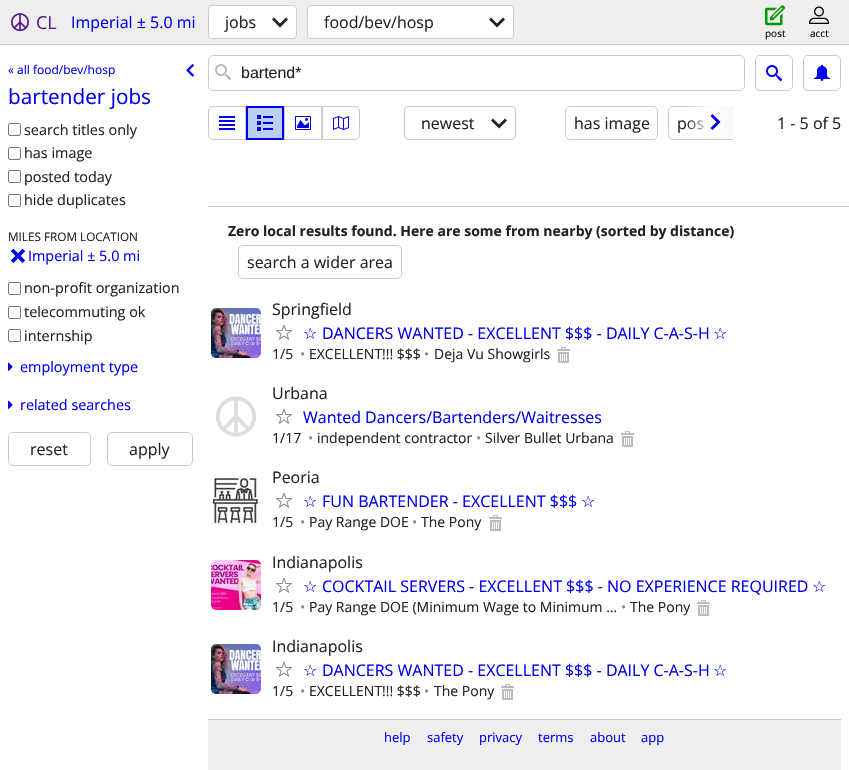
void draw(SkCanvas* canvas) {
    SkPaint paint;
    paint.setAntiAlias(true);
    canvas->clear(0xFFFFFFFF);
    paint.setColor(0xFFEEEEEE);
    canvas->drawRect(SkRect::MakeXYWH(0, 0, 849, 44), paint);
    paint.setColor(0xFFCCCCCC);
    canvas->drawRect(SkRect::MakeXYWH(0, 44, 849, 1), paint);
    canvas->drawImageRect(SkImages::DeferredFromEncodedData(SkData::MakeFromFileName("img1.png")), SkRect::MakeXYWH(11, 13, 18, 19), SkSamplingOptions());
    SkFont font1(fontMgr->matchFamilyStyle("Open Sans", SkFontStyle::Normal()), 18);
    font1.setSubpixel(true);
    paint.setColor(0xFF551A8B);
    canvas->drawString("CL", 36, 29, font1, paint);
    SkFont font2(fontMgr->matchFamilyStyle("Open Sans", SkFontStyle::Normal()), 16);
    font2.setSubpixel(true);
    paint.setColor(0xFF0000EE);
    canvas->drawString("Imperial ± 5.0 mi", 71, 28, font2, paint);
    paint.setColor(0xFFFFFFFF);
    canvas->drawRoundRect(SkRect::MakeXYWH(208.5f, 5.5f, 88, 33), 3.5f, 3.5f, paint);
    paint.setStyle(SkPaint::kStroke_Style);
    paint.setStrokeWidth(1);
    paint.setColor(0xFFCCCCCC);
    canvas->drawRoundRect(SkRect::MakeXYWH(208.5f, 5.5f, 88, 33), 3.5f, 3.5f, paint);
    paint.setStyle(SkPaint::kFill_Style);
    paint.setColor(0xFF222222);
    canvas->drawString("jobs", 225, 28, font2, paint);
    canvas->drawImageRect(SkImages::DeferredFromEncodedData(SkData::MakeFromFileName("img2.png")), SkRect::MakeXYWH(272, 17, 16, 11), SkSamplingOptions());
    paint.setColor(0xFFFFFFFF);
    canvas->drawRoundRect(SkRect::MakeXYWH(307.5f, 5.5f, 206, 33), 3.5f, 3.5f, paint);
    paint.setStyle(SkPaint::kStroke_Style);
    paint.setColor(0xFFCCCCCC);
    canvas->drawRoundRect(SkRect::MakeXYWH(307.5f, 5.5f, 206, 33), 3.5f, 3.5f, paint);
    paint.setStyle(SkPaint::kFill_Style);
    paint.setColor(0xFF222222);
    canvas->drawString("food/bev/hosp", 324, 28, font2, paint);
    canvas->drawImageRect(SkImages::DeferredFromEncodedData(SkData::MakeFromFileName("img2.png")), SkRect::MakeXYWH(489, 17, 16, 11), SkSamplingOptions());
    canvas->drawImageRect(SkImages::DeferredFromEncodedData(SkData::MakeFromFileName("img3.png")), SkRect::MakeXYWH(765, 5, 20, 21), SkSamplingOptions());
    SkFont font3(fontMgr->matchFamilyStyle("Open Sans", SkFontStyle::Normal()), 10);
    font3.setSubpixel(true);
    paint.setColor(0xFF000000);
    canvas->drawString("post", 765, 37, font3, paint);
    canvas->drawImageRect(SkImages::DeferredFromEncodedData(SkData::MakeFromFileName("img4.png")), SkRect::MakeXYWH(809, 6, 20, 18), SkSamplingOptions());
    canvas->drawString("acct", 810, 37, font3, paint);
    SkFont font4(fontMgr->matchFamilyStyle("Open Sans", SkFontStyle::Normal()), 12);
    font4.setSubpixel(true);
    paint.setColor(0xFF0000EE);
    canvas->drawString("« all food/bev/hosp", 8, 74, font4, paint);
    SkFont font5(fontMgr->matchFamilyStyle("Open Sans", SkFontStyle::Normal()), 20.75f);
    font5.setSubpixel(true);
    canvas->drawString("bartender jobs", 8, 104, font5, paint);
    canvas->drawImageRect(SkImages::DeferredFromEncodedData(SkData::MakeFromFileName("img5.png")), SkRect::MakeXYWH(186, 63, 9, 14), SkSamplingOptions());
    paint.setStyle(SkPaint::kStroke_Style);
    paint.setColor(0xFF767676);
    canvas->drawRoundRect(SkRect::MakeXYWH(8.5f, 123.5f, 12, 12), 1.5f, 1.5f, paint);
    SkFont font6(fontMgr->matchFamilyStyle("Open Sans", SkFontStyle::Normal()), 14.4f);
    font6.setSubpixel(true);
    paint.setStyle(SkPaint::kFill_Style);
    paint.setColor(0xFF222222);
    canvas->drawString("search titles only", 24, 135, font6, paint);
    paint.setStyle(SkPaint::kStroke_Style);
    paint.setColor(0xFF767676);
    canvas->drawRoundRect(SkRect::MakeXYWH(8.5f, 147.5f, 12, 12), 1.5f, 1.5f, paint);
    paint.setStyle(SkPaint::kFill_Style);
    paint.setColor(0xFF222222);
    canvas->drawString("has image", 24, 158, font6, paint);
    paint.setStyle(SkPaint::kStroke_Style);
    paint.setColor(0xFF767676);
    canvas->drawRoundRect(SkRect::MakeXYWH(8.5f, 170.5f, 12, 12), 1.5f, 1.5f, paint);
    paint.setStyle(SkPaint::kFill_Style);
    paint.setColor(0xFF222222);
    canvas->drawString("posted today", 24, 182, font6, paint);
    paint.setStyle(SkPaint::kStroke_Style);
    paint.setColor(0xFF767676);
    canvas->drawRoundRect(SkRect::MakeXYWH(8.5f, 194.5f, 12, 12), 1.5f, 1.5f, paint);
    paint.setStyle(SkPaint::kFill_Style);
    paint.setColor(0xFF222222);
    canvas->drawString("hide duplicates", 24, 205, font6, paint);
    SkFont font7(fontMgr->matchFamilyStyle("Open Sans", SkFontStyle::Normal()), 11.75f);
    font7.setSubpixel(true);
    canvas->drawString("MILES FROM LOCATION", 8, 241, font7, paint);
    canvas->drawImageRect(SkImages::DeferredFromEncodedData(SkData::MakeFromFileName("img6.png")), SkRect::MakeXYWH(11, 248, 14, 15), SkSamplingOptions());
    paint.setColor(0xFF0000EE);
    canvas->drawString("Imperial ± 5.0 mi", 28, 261, font6, paint);
    paint.setStyle(SkPaint::kStroke_Style);
    paint.setColor(0xFF767676);
    canvas->drawRoundRect(SkRect::MakeXYWH(8.5f, 282.5f, 12, 12), 1.5f, 1.5f, paint);
    paint.setStyle(SkPaint::kFill_Style);
    paint.setColor(0xFF222222);
    canvas->drawString("non-profit organization", 24, 293, font6, paint);
    paint.setStyle(SkPaint::kStroke_Style);
    paint.setColor(0xFF767676);
    canvas->drawRoundRect(SkRect::MakeXYWH(8.5f, 306.5f, 12, 12), 1.5f, 1.5f, paint);
    paint.setStyle(SkPaint::kFill_Style);
    paint.setColor(0xFF222222);
    canvas->drawString("telecommuting ok", 24, 317, font6, paint);
    paint.setStyle(SkPaint::kStroke_Style);
    paint.setColor(0xFF767676);
    canvas->drawRoundRect(SkRect::MakeXYWH(8.5f, 329.5f, 12, 12), 1.5f, 1.5f, paint);
    paint.setStyle(SkPaint::kFill_Style);
    paint.setColor(0xFF222222);
    canvas->drawString("internship", 24, 341, font6, paint);
    canvas->drawImageRect(SkImages::DeferredFromEncodedData(SkData::MakeFromFileName("img7.png")), SkRect::MakeXYWH(8, 362, 5, 9), SkSamplingOptions());
    paint.setColor(0xFF0000EE);
    canvas->drawString("employment type", 20, 372, font6, paint);
    canvas->drawImageRect(SkImages::DeferredFromEncodedData(SkData::MakeFromFileName("img7.png")), SkRect::MakeXYWH(8, 400, 5, 9), SkSamplingOptions());
    canvas->drawString("related searches", 20, 410, font6, paint);
    paint.setStyle(SkPaint::kStroke_Style);
    paint.setColor(0xFFCCCCCC);
    canvas->drawRoundRect(SkRect::MakeXYWH(8.5f, 432.5f, 82, 33), 4.5f, 4.5f, paint);
    paint.setStyle(SkPaint::kFill_Style);
    paint.setColor(0xFF222222);
    canvas->drawString("reset", 30, 455, font2, paint);
    paint.setStyle(SkPaint::kStroke_Style);
    paint.setColor(0xFFCCCCCC);
    canvas->drawRoundRect(SkRect::MakeXYWH(107.5f, 432.5f, 85, 33), 4.5f, 4.5f, paint);
    paint.setStyle(SkPaint::kFill_Style);
    paint.setColor(0xFF222222);
    canvas->drawString("apply", 129, 455, font2, paint);
    paint.setStyle(SkPaint::kStroke_Style);
    paint.setColor(0xFFCCCCCC);
    canvas->drawRoundRect(SkRect::MakeXYWH(208.5f, 55.5f, 536, 35), 4.5f, 4.5f, paint);
    canvas->drawImageRect(SkImages::DeferredFromEncodedData(SkData::MakeFromFileName("img8.png")), SkRect::MakeXYWH(215, 64, 16, 16), SkSamplingOptions());
    SkFont font8(fontMgr->matchFamilyStyle("Liberation Sans", SkFontStyle::Normal()), 16);
    font8.setSubpixel(true);
    paint.setStyle(SkPaint::kFill_Style);
    paint.setColor(0xFF222222);
    canvas->drawString("bartend*", 241, 78, font8, paint);
    paint.setStyle(SkPaint::kStroke_Style);
    paint.setColor(0xFFCCCCCC);
    canvas->drawRoundRect(SkRect::MakeXYWH(755.5f, 55.5f, 37, 35), 4.5f, 4.5f, paint);
    canvas->drawImageRect(SkImages::DeferredFromEncodedData(SkData::MakeFromFileName("img9.png")), SkRect::MakeXYWH(766, 65, 16, 16), SkSamplingOptions());
    canvas->drawRoundRect(SkRect::MakeXYWH(803.5f, 55.5f, 37, 35), 4.5f, 4.5f, paint);
    canvas->drawImageRect(SkImages::DeferredFromEncodedData(SkData::MakeFromFileName("img10.png")), SkRect::MakeXYWH(814, 65, 16, 16), SkSamplingOptions());
    canvas->drawPath(SkPathBuilder().moveTo(213, 106.5f).lineTo(245.5f, 106.5f).lineTo(245.5f, 139.5f).lineTo(213, 139.5f).cubicTo(210.5f, 139.5f, 208.5f, 137.5f, 208.5f, 135).lineTo(208.5f, 111).cubicTo(208.5f, 108.5f, 210.5f, 106.5f, 213, 106.5f).close().detach(), paint);
    canvas->drawImageRect(SkImages::DeferredFromEncodedData(SkData::MakeFromFileName("img11.png")), SkRect::MakeXYWH(219, 116, 16, 14), SkSamplingOptions());
    paint.setStyle(SkPaint::kFill_Style);
    paint.setColor(0xFFBACFF2);
    canvas->drawRect(SkRect::MakeXYWH(247, 107, 36, 32), paint);
    paint.setStyle(SkPaint::kStroke_Style);
    paint.setStrokeWidth(2);
    paint.setColor(0xFF0000EE);
    canvas->drawRect(SkRect::MakeXYWH(247, 107, 36, 32), paint);
    canvas->drawImageRect(SkImages::DeferredFromEncodedData(SkData::MakeFromFileName("img12.png")), SkRect::MakeXYWH(257, 115, 16, 16), SkSamplingOptions());
    paint.setStrokeWidth(1);
    paint.setColor(0xFFCCCCCC);
    canvas->drawRect(SkRect::MakeXYWH(284.5f, 106.5f, 37, 33), paint);
    canvas->drawImageRect(SkImages::DeferredFromEncodedData(SkData::MakeFromFileName("img13.png")), SkRect::MakeXYWH(295, 116, 16, 14), SkSamplingOptions());
    canvas->drawPath(SkPathBuilder().moveTo(322.5f, 106.5f).lineTo(355, 106.5f).cubicTo(357.5f, 106.5f, 359.5f, 108.5f, 359.5f, 111).lineTo(359.5f, 135).cubicTo(359.5f, 137.5f, 357.5f, 139.5f, 355, 139.5f).lineTo(322.5f, 139.5f).close().detach(), paint);
    canvas->drawImageRect(SkImages::DeferredFromEncodedData(SkData::MakeFromFileName("img14.png")), SkRect::MakeXYWH(333, 116, 16, 14), SkSamplingOptions());
    canvas->drawRoundRect(SkRect::MakeXYWH(404.5f, 106.5f, 111, 33), 3.5f, 3.5f, paint);
    paint.setStyle(SkPaint::kFill_Style);
    paint.setColor(0xFF222222);
    canvas->drawString("newest", 421, 129, font2, paint);
    canvas->drawImageRect(SkImages::DeferredFromEncodedData(SkData::MakeFromFileName("img2.png")), SkRect::MakeXYWH(491, 118, 16, 11), SkSamplingOptions());
    paint.setStyle(SkPaint::kStroke_Style);
    paint.setColor(0xFFCCCCCC);
    canvas->drawRoundRect(SkRect::MakeXYWH(565.5f, 106.5f, 92, 33), 4.5f, 4.5f, paint);
    paint.setStyle(SkPaint::kFill_Style);
    paint.setColor(0xFF222222);
    canvas->drawString("has image", 574, 129, font2, paint);
    canvas->drawString("1 - 5 of 5", 777, 129, font2, paint);
    canvas->save();
    canvas->clipRect(SkRect::MakeXYWH(565, 106, 168, 34));
    paint.setStyle(SkPaint::kStroke_Style);
    paint.setColor(0xFFCCCCCC);
    canvas->drawRoundRect(SkRect::MakeXYWH(668.5f, 106.5f, 115, 33), 4.5f, 4.5f, paint);
    canvas->restore();
    paint.setStyle(SkPaint::kFill_Style);
    paint.setColor(0xFF222222);
    canvas->drawString("pos", 677, 129, font2, paint);
    {
        const SkColor colors[] = {0x00FFFFFF, 0xE6FFFFFF, 0xFFF8F8F8};
        const float stops[] = {0, 0.5f, 1};
        const SkPoint ends[] = {{685, 122}, {733, 122}};
        paint.setShader(SkGradientShader::MakeLinear(ends, colors, stops, 3, SkTileMode::kClamp));
        paint.setAlpha(255);
    }
    canvas->drawRect(SkRect::MakeXYWH(686, 106, 47, 32), paint);
    canvas->drawImageRect(SkImages::DeferredFromEncodedData(SkData::MakeFromFileName("img15.png")), SkRect::MakeXYWH(710, 114, 11, 16), SkSamplingOptions());
    paint.setShader(nullptr);
    paint.setColor(0xFFCCCCCC);
    canvas->drawRect(SkRect::MakeXYWH(208, 206, 641, 1), paint);
    SkFont font9(fontMgr->matchFamilyStyle("Open Sans", SkFontStyle::Bold()), 14);
    font9.setSubpixel(true);
    paint.setColor(0xFF222222);
    canvas->drawString("Zero local results found. Here are some from nearby (sorted by distance)", 228, 236, font9, paint);
    paint.setStyle(SkPaint::kStroke_Style);
    paint.setColor(0xFFCCCCCC);
    canvas->drawRoundRect(SkRect::MakeXYWH(238.5f, 245.5f, 163, 33), 4.5f, 4.5f, paint);
    paint.setStyle(SkPaint::kFill_Style);
    paint.setColor(0xFF222222);
    canvas->drawString("search a wider area", 247, 268, font2, paint);
    canvas->drawImageRect(SkImages::DeferredFromEncodedData(SkData::MakeFromFileName("img16.png")), SkRect::MakeXYWH(211, 308, 50, 50), SkSamplingOptions());
    canvas->drawString("Springfield", 272, 315, font2, paint);
    canvas->drawImageRect(SkImages::DeferredFromEncodedData(SkData::MakeFromFileName("img17.png")), SkRect::MakeXYWH(276, 324, 16, 16), SkSamplingOptions());
    SkFont font10(fontMgr->matchFamilyStyle("DejaVu Sans", SkFontStyle::Normal()), 16);
    font10.setSubpixel(true);
    paint.setColor(0xFF0000EE);
    canvas->drawString("☆", 303, 339, font10, paint);
    canvas->drawString("DANCERS WANTED - EXCELLENT $$$ - DAILY C-A-S-H", 322, 339, font2, paint);
    canvas->drawString("☆", 713, 339, font10, paint);
    SkFont font11(fontMgr->matchFamilyStyle("Open Sans", SkFontStyle::Normal()), 14);
    font11.setSubpixel(true);
    paint.setColor(0xFF222222);
    canvas->drawString("1/5", 272, 359, font11, paint);
    paint.setColor(0xFF888888);
    canvas->drawString("•", 300, 359, font11, paint);
    paint.setColor(0xFF222222);
    canvas->drawString("EXCELLENT!!! $$$", 309, 359, font11, paint);
    paint.setColor(0xFF888888);
    canvas->drawString("•", 424, 359, font11, paint);
    paint.setColor(0xFF222222);
    canvas->drawString("Deja Vu Showgirls", 434, 359, font11, paint);
    canvas->drawImageRect(SkImages::DeferredFromEncodedData(SkData::MakeFromFileName("img18.png")), SkRect::MakeXYWH(557, 347, 13, 16), SkSamplingOptions());
    canvas->drawImageRect(SkImages::DeferredFromEncodedData(SkData::MakeFromFileName("img19.png")), SkRect::MakeXYWH(216, 396, 40, 41), SkSamplingOptions());
    canvas->drawString("Urbana", 272, 399, font2, paint);
    canvas->drawImageRect(SkImages::DeferredFromEncodedData(SkData::MakeFromFileName("img17.png")), SkRect::MakeXYWH(276, 408, 16, 16), SkSamplingOptions());
    paint.setColor(0xFF0000EE);
    canvas->drawString("Wanted Dancers/Bartenders/Waitresses", 303, 423, font2, paint);
    paint.setColor(0xFF222222);
    canvas->drawString("1/17", 272, 443, font11, paint);
    paint.setColor(0xFF888888);
    canvas->drawString("•", 308, 443, font11, paint);
    paint.setColor(0xFF222222);
    canvas->drawString("independent contractor", 317, 443, font11, paint);
    paint.setColor(0xFF888888);
    canvas->drawString("•", 476, 443, font11, paint);
    paint.setColor(0xFF222222);
    canvas->drawString("Silver Bullet Urbana", 485, 443, font11, paint);
    canvas->drawImageRect(SkImages::DeferredFromEncodedData(SkData::MakeFromFileName("img18.png")), SkRect::MakeXYWH(621, 431, 13, 16), SkSamplingOptions());
    canvas->drawImageRect(SkImages::DeferredFromEncodedData(SkData::MakeFromFileName("img20.png")), SkRect::MakeXYWH(211, 476, 48, 48), SkSamplingOptions());
    canvas->drawString("Peoria", 272, 483, font2, paint);
    canvas->drawImageRect(SkImages::DeferredFromEncodedData(SkData::MakeFromFileName("img17.png")), SkRect::MakeXYWH(276, 492, 16, 16), SkSamplingOptions());
    paint.setColor(0xFF0000EE);
    canvas->drawString("☆", 303, 507, font10, paint);
    canvas->drawString("FUN BARTENDER - EXCELLENT $$$", 322, 507, font2, paint);
    canvas->drawString("☆", 581, 507, font10, paint);
    paint.setColor(0xFF222222);
    canvas->drawString("1/5", 272, 527, font11, paint);
    paint.setColor(0xFF888888);
    canvas->drawString("•", 300, 527, font11, paint);
    paint.setColor(0xFF222222);
    canvas->drawString("Pay Range DOE", 309, 527, font11, paint);
    paint.setColor(0xFF888888);
    canvas->drawString("•", 412, 527, font11, paint);
    paint.setColor(0xFF222222);
    canvas->drawString("The Pony", 421, 527, font11, paint);
    canvas->drawImageRect(SkImages::DeferredFromEncodedData(SkData::MakeFromFileName("img18.png")), SkRect::MakeXYWH(489, 515, 13, 16), SkSamplingOptions());
    canvas->drawImageRect(SkImages::DeferredFromEncodedData(SkData::MakeFromFileName("img21.png")), SkRect::MakeXYWH(211, 560, 50, 50), SkSamplingOptions());
    canvas->drawString("Indianapolis", 272, 568, font2, paint);
    canvas->drawImageRect(SkImages::DeferredFromEncodedData(SkData::MakeFromFileName("img17.png")), SkRect::MakeXYWH(276, 577, 16, 16), SkSamplingOptions());
    paint.setColor(0xFF0000EE);
    canvas->drawString("☆", 303, 592, font10, paint);
    canvas->drawString("COCKTAIL SERVERS - EXCELLENT $$$ - NO EXPERIENCE REQUIRED", 322, 592, font2, paint);
    canvas->drawString("☆", 812, 592, font10, paint);
    paint.setColor(0xFF222222);
    canvas->drawString("1/5", 272, 612, font11, paint);
    paint.setColor(0xFF888888);
    canvas->drawString("•", 300, 612, font11, paint);
    paint.setColor(0xFF222222);
    canvas->drawString("Pay Range DOE (Minimum Wage to Minimum ...", 309, 612, font11, paint);
    paint.setColor(0xFF888888);
    canvas->drawString("•", 621, 612, font11, paint);
    paint.setColor(0xFF222222);
    canvas->drawString("The Pony", 630, 612, font11, paint);
    canvas->drawImageRect(SkImages::DeferredFromEncodedData(SkData::MakeFromFileName("img18.png")), SkRect::MakeXYWH(697, 600, 13, 16), SkSamplingOptions());
    canvas->drawImageRect(SkImages::DeferredFromEncodedData(SkData::MakeFromFileName("img16.png")), SkRect::MakeXYWH(211, 644, 50, 50), SkSamplingOptions());
    canvas->drawString("Indianapolis", 272, 652, font2, paint);
    canvas->drawImageRect(SkImages::DeferredFromEncodedData(SkData::MakeFromFileName("img17.png")), SkRect::MakeXYWH(276, 661, 16, 16), SkSamplingOptions());
    paint.setColor(0xFF0000EE);
    canvas->drawString("☆", 303, 676, font10, paint);
    canvas->drawString("DANCERS WANTED - EXCELLENT $$$ - DAILY C-A-S-H", 322, 676, font2, paint);
    canvas->drawString("☆", 713, 676, font10, paint);
    paint.setColor(0xFF222222);
    canvas->drawString("1/5", 272, 696, font11, paint);
    paint.setColor(0xFF888888);
    canvas->drawString("•", 300, 696, font11, paint);
    paint.setColor(0xFF222222);
    canvas->drawString("EXCELLENT!!! $$$", 309, 696, font11, paint);
    paint.setColor(0xFF888888);
    canvas->drawString("•", 424, 696, font11, paint);
    paint.setColor(0xFF222222);
    canvas->drawString("The Pony", 434, 696, font11, paint);
    canvas->drawImageRect(SkImages::DeferredFromEncodedData(SkData::MakeFromFileName("img18.png")), SkRect::MakeXYWH(501, 684, 13, 16), SkSamplingOptions());
    paint.setColor(0xFFEEEEEE);
    canvas->drawRect(SkRect::MakeXYWH(208, 720, 633, 50), paint);
    paint.setColor(0xFFCCCCCC);
    canvas->drawRect(SkRect::MakeXYWH(208, 719, 633, 1), paint);
    SkFont font12(fontMgr->matchFamilyStyle("Open Sans", SkFontStyle::Normal()), 13);
    font12.setSubpixel(true);
    paint.setColor(0xFF0000EE);
    canvas->drawString("help", 384, 742, font12, paint);
    canvas->drawString("safety", 427, 742, font12, paint);
    canvas->drawString("privacy", 479, 742, font12, paint);
    canvas->drawString("terms", 538, 742, font12, paint);
    canvas->drawString("about", 590, 742, font12, paint);
    canvas->drawString("app", 641, 742, font12, paint);
}
